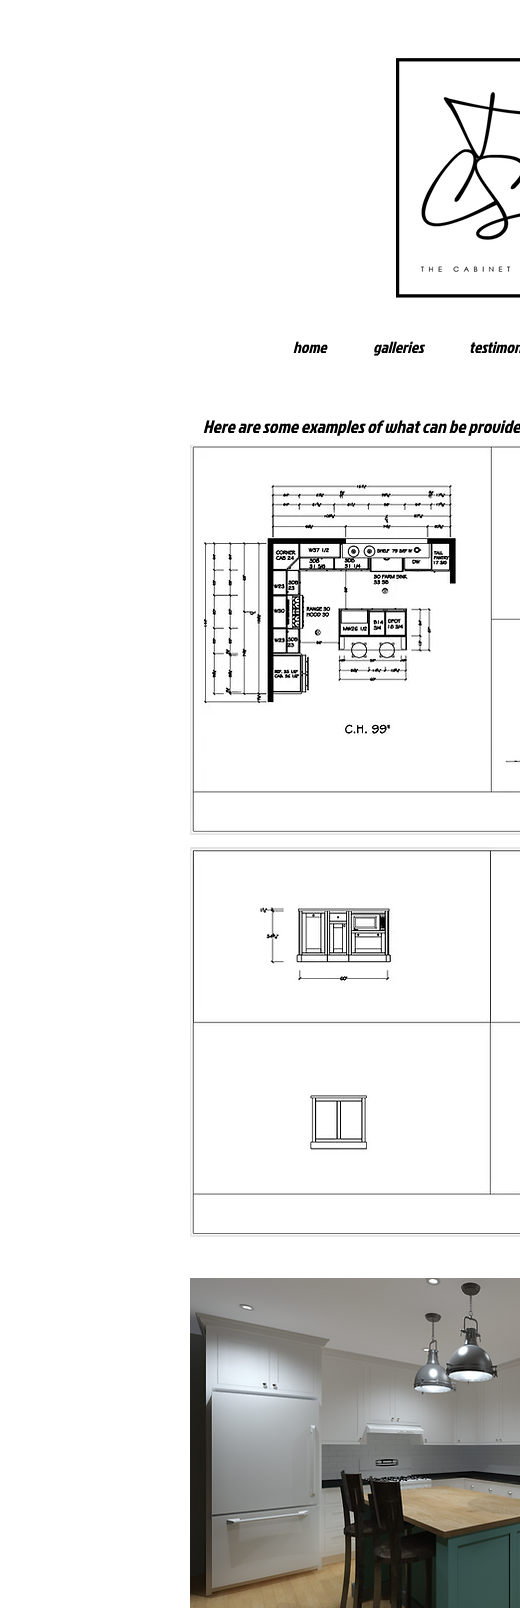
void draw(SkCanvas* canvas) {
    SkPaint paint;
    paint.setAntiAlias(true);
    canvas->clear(0xFFFFFFFF);
    canvas->drawImageRect(SkImages::DeferredFromEncodedData(SkData::MakeFromFileName("img1.png")), SkRect::MakeXYWH(396, 58, 124, 240), SkSamplingOptions());
    SkFont font1(fontMgr->matchFamilyStyle("Jockey One", SkFontStyle::Italic()), 16);
    font1.setSubpixel(true);
    paint.setColor(0xFF000000);
    canvas->drawString("home", 293, 353, font1, paint);
    canvas->drawString("galleries", 373, 353, font1, paint);
    canvas->drawString("testimon", 469, 353, font1, paint);
    SkFont font2(fontMgr->matchFamilyStyle("Jockey One", SkFontStyle::Italic()), 18);
    font2.setSubpixel(true);
    canvas->drawString("Here are some examples of what can be provide", 203, 433, font2, paint);
    canvas->drawImageRect(SkImages::DeferredFromEncodedData(SkData::MakeFromFileName("img2.png")), SkRect::MakeXYWH(190, 445, 330, 390), SkSamplingOptions());
    canvas->drawImageRect(SkImages::DeferredFromEncodedData(SkData::MakeFromFileName("img3.png")), SkRect::MakeXYWH(190, 847, 330, 390), SkSamplingOptions());
    canvas->drawImageRect(SkImages::DeferredFromEncodedData(SkData::MakeFromFileName("img4.png")), SkRect::MakeXYWH(190, 1278, 330, 330), SkSamplingOptions());
}
